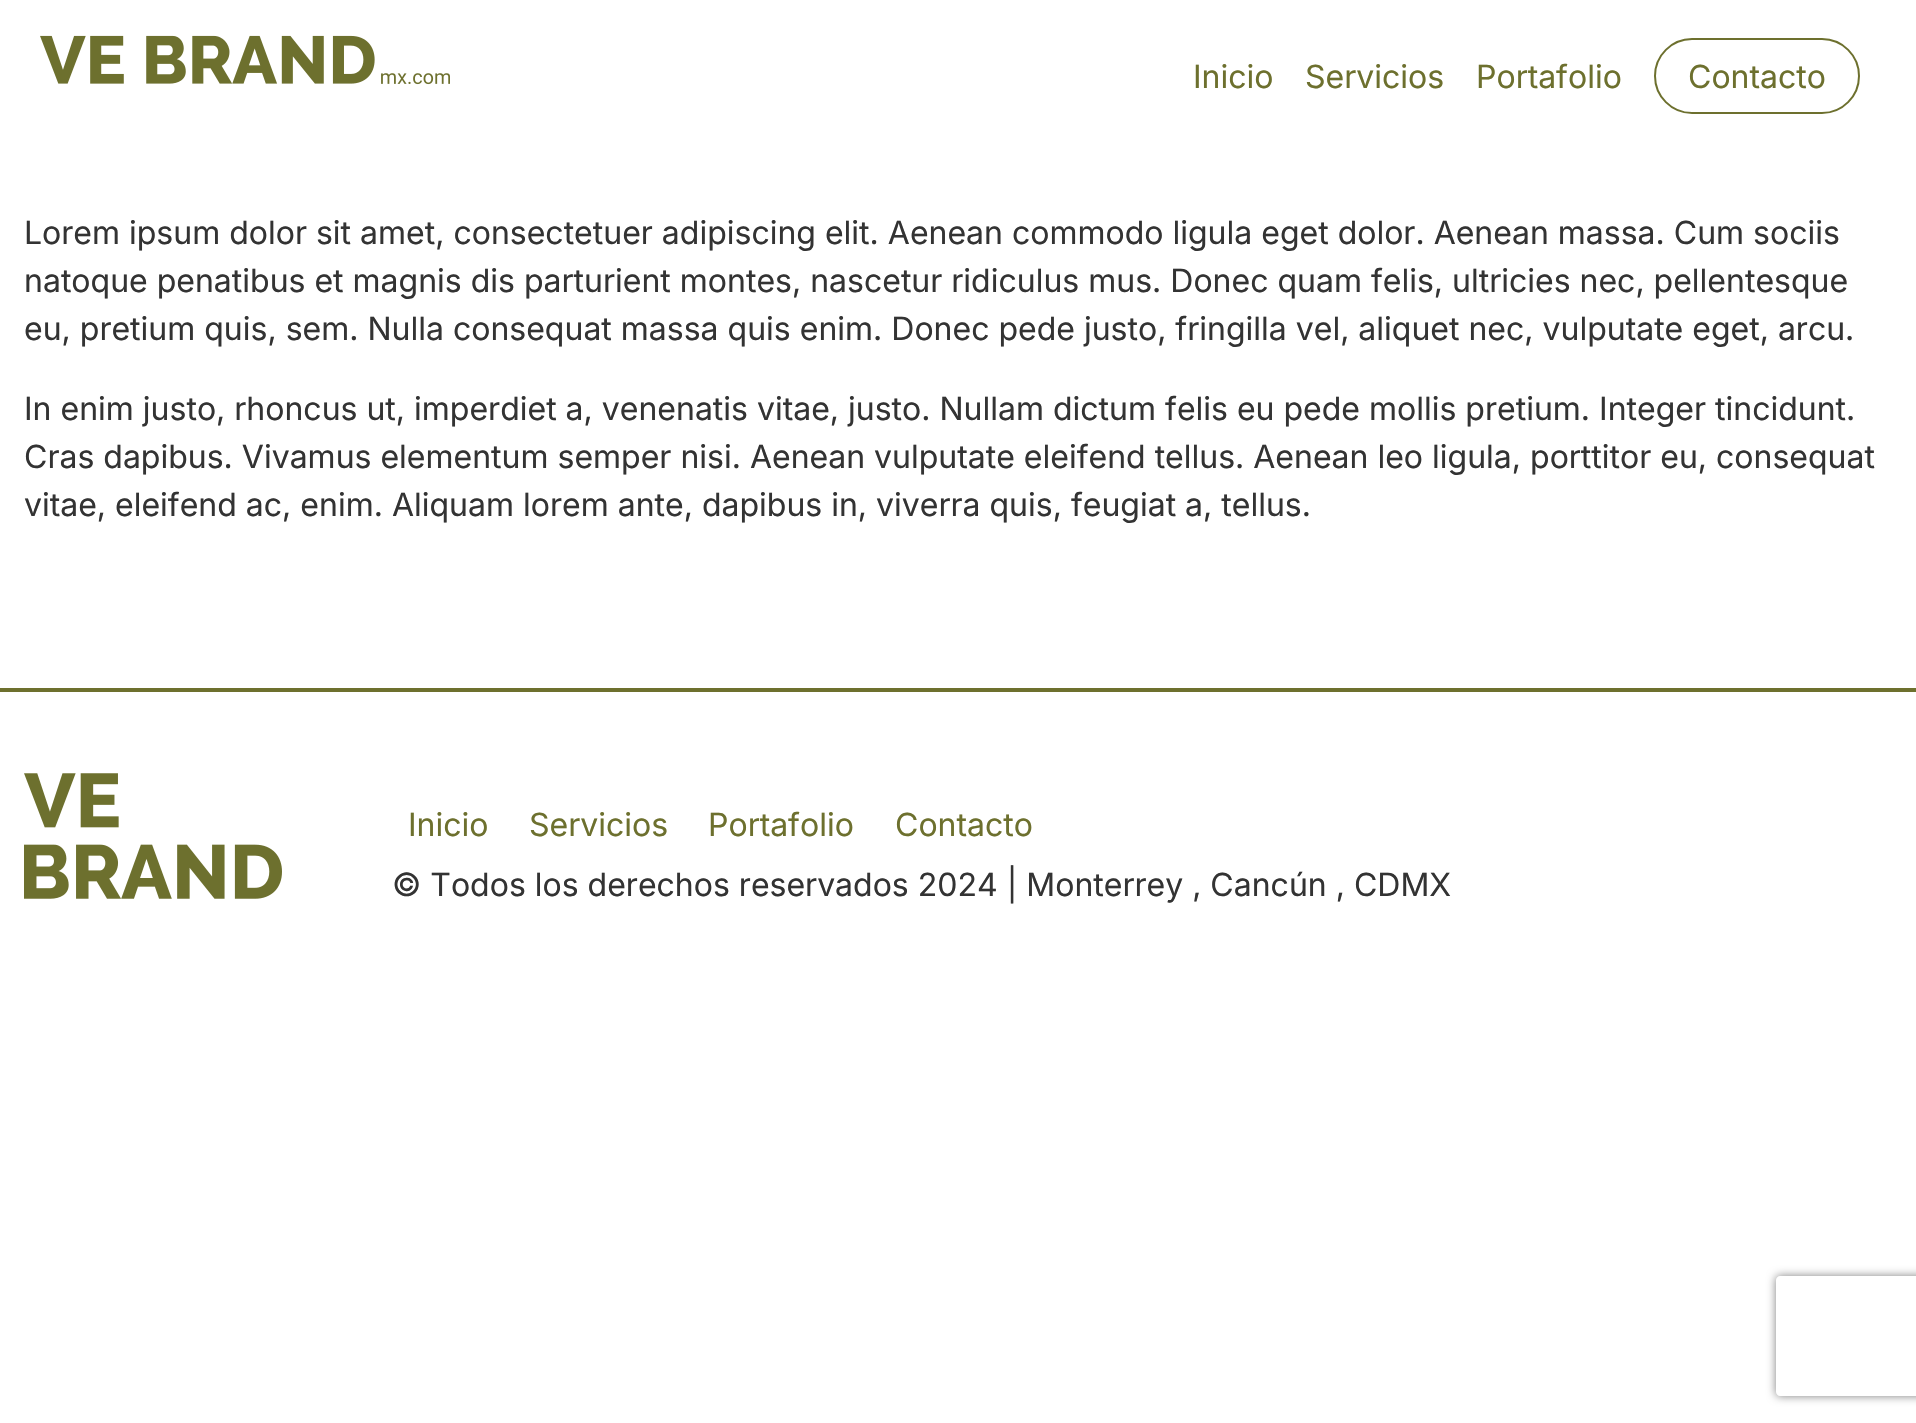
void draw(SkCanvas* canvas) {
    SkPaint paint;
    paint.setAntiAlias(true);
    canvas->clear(0xFFFFFFFF);
    canvas->drawImageRect(SkImages::DeferredFromEncodedData(SkData::MakeFromFileName("img1.png")), SkRect::MakeXYWH(40, 35, 410, 50), SkSamplingOptions());
    SkFont font1(fontMgr->matchFamilyStyle("Inter", SkFontStyle::Normal()), 32);
    font1.setSubpixel(true);
    paint.setColor(0xFF6D702E);
    canvas->drawString("Inicio", 1193, 88, font1, paint);
    canvas->drawString("Servicios", 1305, 88, font1, paint);
    canvas->drawString("Portafolio", 1476, 88, font1, paint);
    paint.setStyle(SkPaint::kStroke_Style);
    paint.setStrokeWidth(2);
    canvas->drawRoundRect(SkRect::MakeXYWH(1655, 39, 204, 74), 37, 37, paint);
    paint.setStyle(SkPaint::kFill_Style);
    canvas->drawString("Contacto", 1688, 88, font1, paint);
    paint.setColor(0xFF333333);
    canvas->drawString("Lorem ipsum dolor sit amet, consectetuer adipiscing elit. Aenean commodo ligula eget dolor. Aenean massa. Cum sociis", 24, 244, font1, paint);
    canvas->drawString("natoque penatibus et magnis dis parturient montes, nascetur ridiculus mus. Donec quam felis, ultricies nec, pellentesque", 24, 292, font1, paint);
    canvas->drawString("eu, pretium quis, sem. Nulla consequat massa quis enim. Donec pede justo, fringilla vel, aliquet nec, vulputate eget, arcu.", 24, 340, font1, paint);
    canvas->drawString("In enim justo, rhoncus ut, imperdiet a, venenatis vitae, justo. Nullam dictum felis eu pede mollis pretium. Integer tincidunt.", 24, 420, font1, paint);
    canvas->drawString("Cras dapibus. Vivamus elementum semper nisi. Aenean vulputate eleifend tellus. Aenean leo ligula, porttitor eu, consequat", 24, 468, font1, paint);
    canvas->drawString("vitae, eleifend ac, enim. Aliquam lorem ante, dapibus in, viverra quis, feugiat a, tellus.", 24, 516, font1, paint);
    paint.setColor(0xFF6D702E);
    canvas->drawRect(SkRect::MakeXYWH(0, 688, 1916, 4), paint);
    canvas->drawImageRect(SkImages::DeferredFromEncodedData(SkData::MakeFromFileName("img2.png")), SkRect::MakeXYWH(24, 773, 258, 126), SkSamplingOptions());
    canvas->drawString("Inicio", 408, 836, font1, paint);
    canvas->drawString("Servicios", 529, 836, font1, paint);
    canvas->drawString("Portafolio", 708, 836, font1, paint);
    canvas->drawString("Contacto", 895, 836, font1, paint);
    paint.setColor(0xFF333333);
    canvas->drawString("© Todos los derechos reservados 2024 | Monterrey , Cancún , CDMX", 392, 896, font1, paint);
    canvas->save();
    canvas->clipPath(SkPathBuilder(SkPathFillType::kEvenOdd).moveTo(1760, 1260).lineTo(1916, 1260).lineTo(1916, 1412).lineTo(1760, 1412).close().moveTo(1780, 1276).lineTo(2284, 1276).cubicTo(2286, 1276, 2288, 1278, 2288, 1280).lineTo(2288, 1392).cubicTo(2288, 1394, 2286, 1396, 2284, 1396).lineTo(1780, 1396).cubicTo(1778, 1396, 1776, 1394, 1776, 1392).lineTo(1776, 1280).cubicTo(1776, 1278, 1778, 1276, 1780, 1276).close().detach(), true);
    paint.setColor(0xFF808080);
    paint.setMaskFilter(SkMaskFilter::MakeBlur(kNormal_SkBlurStyle, 5));
    canvas->drawRoundRect(SkRect::MakeXYWH(1776, 1276, 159, 120), 4, 4, paint);
    paint.setMaskFilter(nullptr);
    canvas->restore();
}
